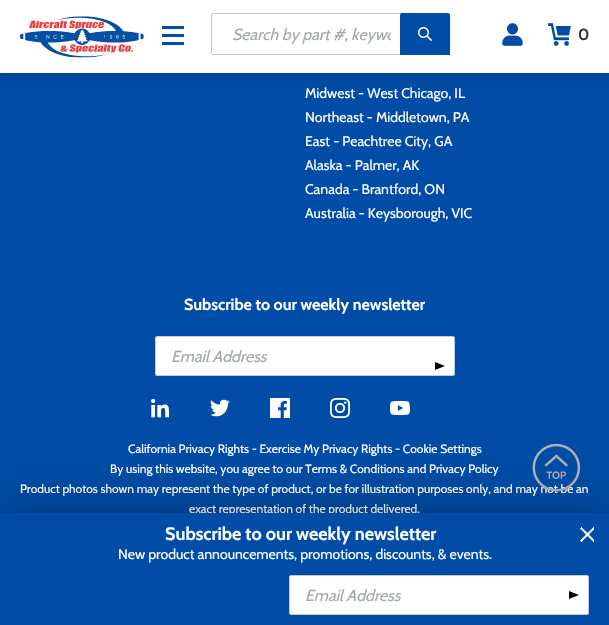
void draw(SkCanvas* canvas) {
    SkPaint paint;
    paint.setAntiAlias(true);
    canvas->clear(0xFF004CA6);
    paint.setColor(0x33000000);
    paint.setMaskFilter(SkMaskFilter::MakeBlur(kNormal_SkBlurStyle, 5));
    canvas->drawRect(SkRect::MakeXYWH(0, 2, 609, 73), paint);
    paint.setMaskFilter(nullptr);
    paint.setColor(0xFFFFFFFF);
    canvas->drawRect(SkRect::MakeXYWH(0, 0, 609, 73), paint);
    canvas->drawImageRect(SkImages::DeferredFromEncodedData(SkData::MakeFromFileName("img1.png")), SkRect::MakeXYWH(20, 16, 124, 42), SkSamplingOptions());
    paint.setColor(0xFF004CA6);
    canvas->drawRect(SkRect::MakeXYWH(162, 26, 22, 3), paint);
    canvas->drawRect(SkRect::MakeXYWH(162, 34, 22, 3), paint);
    canvas->drawRect(SkRect::MakeXYWH(162, 42, 22, 3), paint);
    paint.setStyle(SkPaint::kStroke_Style);
    paint.setStrokeWidth(1);
    paint.setColor(0xFFBECBCF);
    canvas->drawRoundRect(SkRect::MakeXYWH(211.5f, 13.5f, 238, 41), 1.5f, 1.5f, paint);
    canvas->save();
    canvas->clipRect(SkRect::MakeXYWH(232, 25, 159, 19));
    SkFont font1(fontMgr->matchFamilyStyle("Cabin", SkFontStyle::Italic()), 16);
    font1.setSubpixel(true);
    paint.setStyle(SkPaint::kFill_Style);
    paint.setColor(0xFFA2AAAC);
    canvas->drawString("Search by part #, keywo", 232, 40, font1, paint);
    canvas->restore();
    paint.setColor(0xFF004CA6);
    canvas->drawPath(SkPathBuilder().moveTo(402, 13).lineTo(448, 13).cubicTo(449, 13, 450, 14, 450, 15).lineTo(450, 55).lineTo(400, 55).lineTo(400, 15).cubicTo(400, 14, 401, 13, 402, 13).close().detach(), paint);
    canvas->drawImageRect(SkImages::DeferredFromEncodedData(SkData::MakeFromFileName("img2.png")), SkRect::MakeXYWH(418, 27, 14, 14), SkSamplingOptions());
    canvas->drawImageRect(SkImages::DeferredFromEncodedData(SkData::MakeFromFileName("img3.png")), SkRect::MakeXYWH(502, 23, 21, 23), SkSamplingOptions());
    canvas->drawImageRect(SkImages::DeferredFromEncodedData(SkData::MakeFromFileName("img4.png")), SkRect::MakeXYWH(548, 23, 23, 23), SkSamplingOptions());
    SkFont font2(fontMgr->matchFamilyStyle("Cabin", SkFontStyle(600, SkFontStyle::kNormal_Width, SkFontStyle::kUpright_Slant)), 16);
    font2.setSubpixel(true);
    paint.setColor(0xFF2A2D34);
    canvas->drawString("0", 578, 40, font2, paint);
    SkFont font3(fontMgr->matchFamilyStyle("Cabin", SkFontStyle::Normal()), 14);
    font3.setSubpixel(true);
    paint.setColor(0xFFFFFFFF);
    canvas->drawString("Midwest - West Chicago, IL", 305, 98, font3, paint);
    canvas->drawString("Northeast - Middletown, PA", 305, 122, font3, paint);
    canvas->drawString("East - Peachtree City, GA", 305, 146, font3, paint);
    canvas->drawString("Alaska - Palmer, AK", 305, 170, font3, paint);
    canvas->drawString("Canada - Brantford, ON", 305, 194, font3, paint);
    canvas->drawString("Australia - Keysborough, VIC", 305, 218, font3, paint);
    SkFont font4(fontMgr->matchFamilyStyle("Cabin", SkFontStyle::Bold()), 16);
    font4.setSubpixel(true);
    canvas->drawString("Subscribe to our weekly newsletter", 184, 310, font4, paint);
    canvas->drawRoundRect(SkRect::MakeXYWH(155.5f, 336.5f, 299, 39), 1.5f, 1.5f, paint);
    paint.setStyle(SkPaint::kStroke_Style);
    paint.setColor(0xFFBECBCF);
    canvas->drawRoundRect(SkRect::MakeXYWH(155.5f, 336.5f, 299, 39), 1.5f, 1.5f, paint);
    paint.setStyle(SkPaint::kFill_Style);
    paint.setColor(0xFFA2AAAC);
    canvas->drawString("Email Address", 171, 362, font1, paint);
    paint.setColor(0xFF000000);
    canvas->drawPath(SkPathBuilder().moveTo(435, 370).lineTo(435, 362).lineTo(445, 366).close().detach(), paint);
    SkFont font5(fontMgr->matchFamilyStyle("Cabin", SkFontStyle::Normal()), 12);
    font5.setSubpixel(true);
    paint.setColor(0xFFFFFFFF);
    canvas->drawString("Product photos shown may represent the type of product, or be for illustration purposes only, and may not be an", 20, 493, font5, paint);
    canvas->drawImageRect(SkImages::DeferredFromEncodedData(SkData::MakeFromFileName("img5.png")), SkRect::MakeXYWH(532, 443, 49, 49), SkSamplingOptions());
    canvas->drawImageRect(SkImages::DeferredFromEncodedData(SkData::MakeFromFileName("img6.png")), SkRect::MakeXYWH(151, 398, 18, 20), SkSamplingOptions());
    canvas->drawImageRect(SkImages::DeferredFromEncodedData(SkData::MakeFromFileName("img7.png")), SkRect::MakeXYWH(210, 399, 20, 18), SkSamplingOptions());
    canvas->drawImageRect(SkImages::DeferredFromEncodedData(SkData::MakeFromFileName("img8.png")), SkRect::MakeXYWH(270, 398, 20, 20), SkSamplingOptions());
    canvas->drawImageRect(SkImages::DeferredFromEncodedData(SkData::MakeFromFileName("img9.png")), SkRect::MakeXYWH(330, 398, 20, 20), SkSamplingOptions());
    canvas->drawImageRect(SkImages::DeferredFromEncodedData(SkData::MakeFromFileName("img10.png")), SkRect::MakeXYWH(390, 400, 20, 16), SkSamplingOptions());
    canvas->drawString("California Privacy Rights - Exercise My Privacy Rights - Cookie Settings", 128, 453, font5, paint);
    canvas->drawString("By using this website, you agree to our Terms & Conditions and Privacy Policy", 110, 473, font5, paint);
    canvas->drawString("exact representation of the product delivered.", 189, 513, font5, paint);
    paint.setColor(0x57000000);
    paint.setMaskFilter(SkMaskFilter::MakeBlur(kNormal_SkBlurStyle, 25));
    canvas->drawRect(SkRect::MakeXYWH(0, 515, 609, 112), paint);
    paint.setMaskFilter(nullptr);
    paint.setColor(0xFF004CA6);
    canvas->drawRect(SkRect::MakeXYWH(0, 513, 609, 112), paint);
    SkFont font6(fontMgr->matchFamilyStyle("Cabin", SkFontStyle::Bold()), 18);
    font6.setSubpixel(true);
    paint.setColor(0xFFFFFFFF);
    canvas->drawString("Subscribe to our weekly newsletter", 165, 540, font6, paint);
    canvas->drawString("New product announcements, promotions, discounts, & events.", 118, 559, font3, paint);
    canvas->drawRoundRect(SkRect::MakeXYWH(289.5f, 575.5f, 299, 39), 1.5f, 1.5f, paint);
    paint.setStyle(SkPaint::kStroke_Style);
    paint.setColor(0xFFBECBCF);
    canvas->drawRoundRect(SkRect::MakeXYWH(289.5f, 575.5f, 299, 39), 1.5f, 1.5f, paint);
    paint.setStyle(SkPaint::kFill_Style);
    paint.setColor(0xFFA2AAAC);
    canvas->drawString("Email Address", 305, 601, font1, paint);
    paint.setColor(0xFF000000);
    canvas->drawPath(SkPathBuilder().moveTo(569, 599).lineTo(569, 591).lineTo(579, 595).close().detach(), paint);
    canvas->drawImageRect(SkImages::DeferredFromEncodedData(SkData::MakeFromFileName("img11.png")), SkRect::MakeXYWH(580, 527, 14, 15), SkSamplingOptions());
}
